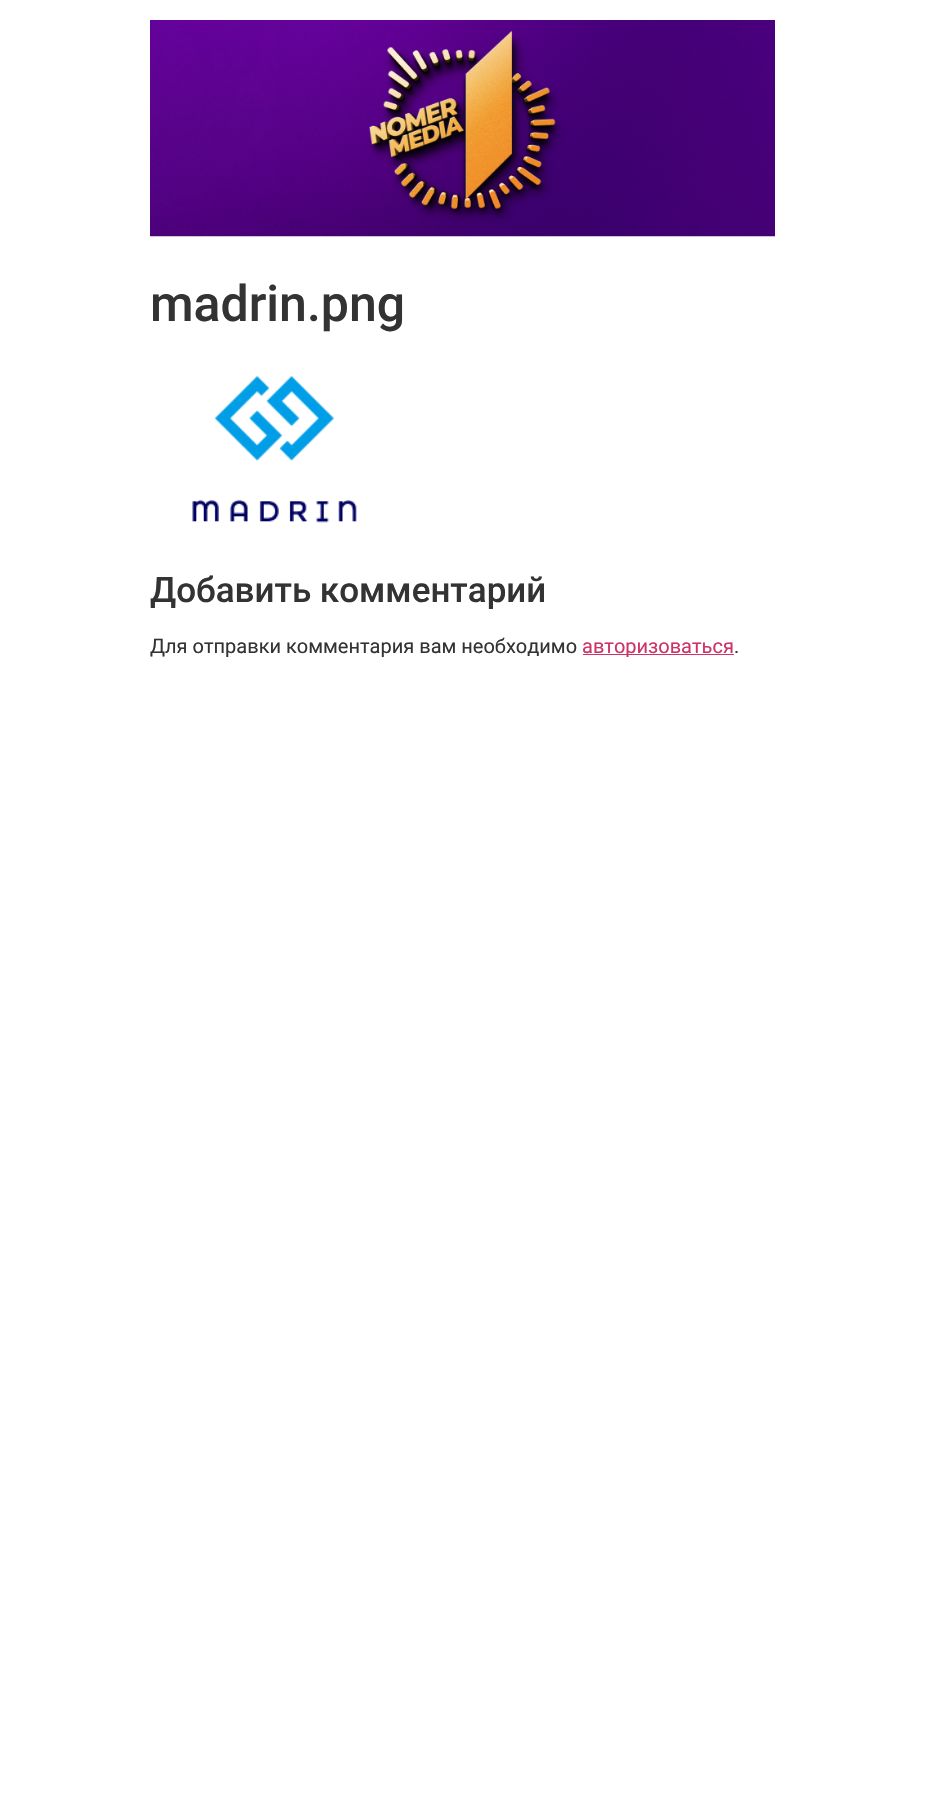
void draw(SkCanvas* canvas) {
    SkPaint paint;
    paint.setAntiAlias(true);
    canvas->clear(0xFFFFFFFF);
    canvas->drawImageRect(SkImages::DeferredFromEncodedData(SkData::MakeFromFileName("img1.png")), SkRect::MakeXYWH(150, 20, 625, 217), SkSamplingOptions());
    SkFont font1(fontMgr->matchFamilyStyle("Roboto", SkFontStyle(500, SkFontStyle::kNormal_Width, SkFontStyle::kUpright_Slant)), 50);
    font1.setSubpixel(true);
    paint.setColor(0xFF333333);
    canvas->drawString("madrin.png", 150, 321, font1, paint);
    canvas->drawImageRect(SkImages::DeferredFromEncodedData(SkData::MakeFromFileName("img2.png")), SkRect::MakeXYWH(192, 376, 165, 147), SkSamplingOptions());
    SkFont font2(fontMgr->matchFamilyStyle("Roboto", SkFontStyle(500, SkFontStyle::kNormal_Width, SkFontStyle::kUpright_Slant)), 35);
    font2.setSubpixel(true);
    canvas->drawString("Добавить комментарий", 150, 602, font2, paint);
    SkFont font3(fontMgr->matchFamilyStyle("Roboto", SkFontStyle::Normal()), 20);
    font3.setSubpixel(true);
    canvas->drawString("Для отправки комментария вам необходимо", 150, 653, font3, paint);
    paint.setColor(0xFFCC3366);
    canvas->drawRect(SkRect::MakeXYWH(583, 654, 151, 1), paint);
    canvas->drawString("авторизоваться", 582, 653, font3, paint);
    paint.setColor(0xFF333333);
    canvas->drawString(".", 734, 653, font3, paint);
}
